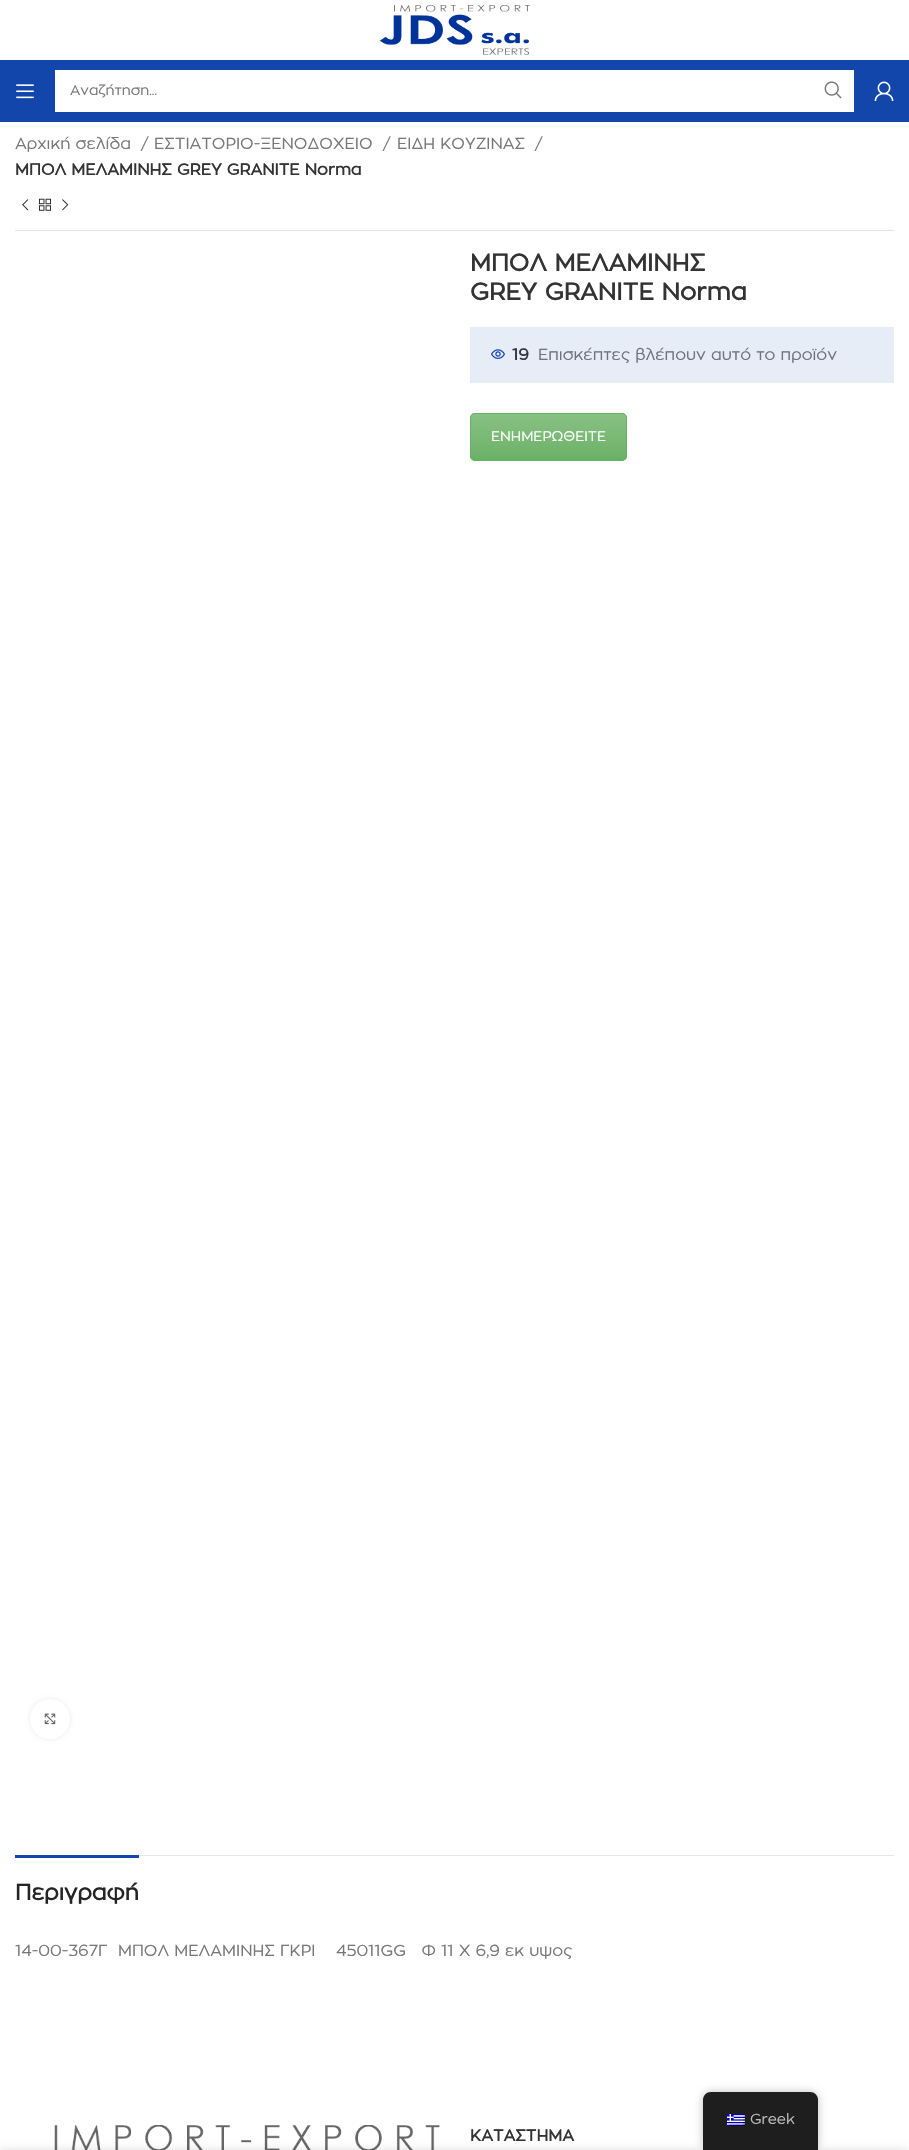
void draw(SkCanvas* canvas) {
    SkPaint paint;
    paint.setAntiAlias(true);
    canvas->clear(0xFFFFFFFF);
    paint.setColor(0xFFE7EDF7);
    canvas->drawRect(SkRect::MakeXYWH(470, 327, 424, 56), paint);
    canvas->drawImageRect(SkImages::DeferredFromEncodedData(SkData::MakeFromFileName("img1.png")), SkRect::MakeXYWH(380, 5, 150, 50), SkSamplingOptions());
    paint.setColor(0xFF1246AB);
    canvas->drawRect(SkRect::MakeXYWH(0, 60, 909, 62), paint);
    canvas->drawImageRect(SkImages::DeferredFromEncodedData(SkData::MakeFromFileName("img2.png")), SkRect::MakeXYWH(16, 84, 18, 15), SkSamplingOptions());
    paint.setColor(0xFFFFFFFF);
    canvas->drawRect(SkRect::MakeXYWH(55, 70, 799, 42), paint);
    SkFont font1(fontMgr->matchFamilyStyle("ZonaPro", SkFontStyle::Normal()), 14);
    font1.setSubpixel(true);
    paint.setColor(0xFF777777);
    canvas->drawString("Αναζήτηση...", 70, 95, font1, paint);
    canvas->drawImageRect(SkImages::DeferredFromEncodedData(SkData::MakeFromFileName("img3.png")), SkRect::MakeXYWH(824, 81, 18, 18), SkSamplingOptions());
    canvas->drawImageRect(SkImages::DeferredFromEncodedData(SkData::MakeFromFileName("img4.png")), SkRect::MakeXYWH(874, 81, 20, 20), SkSamplingOptions());
    SkFont font2(fontMgr->matchFamilyStyle("ZonaPro", SkFontStyle::Normal()), 16);
    font2.setSubpixel(true);
    canvas->drawString("Αρχική σελίδα", 15, 149, font2, paint);
    canvas->drawString("/", 141, 149, font2, paint);
    canvas->drawString("ΕΣΤΙΑΤΟΡΙΟ-ΞΕΝΟΔΟΧΕΙΟ", 154, 149, font2, paint);
    canvas->drawString("/", 383, 149, font2, paint);
    canvas->drawString("ΕΙΔΗ ΚΟΥΖΙΝΑΣ", 397, 149, font2, paint);
    canvas->drawString("/", 535, 149, font2, paint);
    SkFont font3(fontMgr->matchFamilyStyle("ZonaPro", SkFontStyle::Bold()), 16);
    font3.setSubpixel(true);
    paint.setColor(0xFF333333);
    canvas->drawString("ΜΠΟΛ ΜΕΛΑΜΙΝΗΣ GREY GRANITE Norma", 15, 175, font3, paint);
    canvas->drawImageRect(SkImages::DeferredFromEncodedData(SkData::MakeFromFileName("img5.png")), SkRect::MakeXYWH(22, 199, 7, 12), SkSamplingOptions());
    canvas->drawImageRect(SkImages::DeferredFromEncodedData(SkData::MakeFromFileName("img6.png")), SkRect::MakeXYWH(39, 198, 12, 13), SkSamplingOptions());
    canvas->drawImageRect(SkImages::DeferredFromEncodedData(SkData::MakeFromFileName("img7.png")), SkRect::MakeXYWH(62, 199, 7, 12), SkSamplingOptions());
    paint.setColor(0xFFE4E4E4);
    canvas->drawRect(SkRect::MakeXYWH(15, 230, 879, 1), paint);
    SkFont font4(fontMgr->matchFamilyStyle("ZonaPro", SkFontStyle::Bold()), 24);
    font4.setSubpixel(true);
    paint.setColor(0xFF333333);
    canvas->drawString("ΜΠΟΛ ΜΕΛΑΜΙΝΗΣ", 470, 271, font4, paint);
    canvas->drawString("GREY GRANITE Norma", 470, 300, font4, paint);
    canvas->drawImageRect(SkImages::DeferredFromEncodedData(SkData::MakeFromFileName("img8.png")), SkRect::MakeXYWH(491, 349, 14, 10), SkSamplingOptions());
    paint.setColor(0xFF30353F);
    canvas->drawString("19", 512, 360, font3, paint);
    paint.setColor(0xFF6D727C);
    canvas->drawString("Επισκέπτες βλέπουν αυτό το προϊόν", 538, 360, font2, paint);
    paint.setColor(0xFF6AB165);
    canvas->drawRoundRect(SkRect::MakeXYWH(470, 413, 157, 48), 5, 5, paint);
    canvas->save();
    canvas->clipPath(SkPathBuilder().moveTo(475, 413).lineTo(622, 413).cubicTo(625, 413, 627, 415, 627, 418).lineTo(627, 456).cubicTo(627, 459, 625, 461, 622, 461).lineTo(475, 461).cubicTo(472, 461, 470, 459, 470, 456).lineTo(470, 418).cubicTo(470, 415, 472, 413, 475, 413).close().detach(), true);
    {
        const SkColor colors[] = {0x33FFFFFF, 0x03FFFFFF};
        const float stops[] = {0, 1};
        const SkPoint ends[] = {{549, 414}, {549, 460}};
        paint.setShader(SkGradientShader::MakeLinear(ends, colors, stops, 2, SkTileMode::kClamp));
        paint.setAlpha(255);
    }
    canvas->drawRect(SkRect::MakeXYWH(470, 414, 157, 43), paint);
    canvas->restore();
    paint.setStyle(SkPaint::kStroke_Style);
    paint.setStrokeWidth(1);
    paint.setShader(nullptr);
    paint.setColor(0xFF6AB165);
    canvas->drawRoundRect(SkRect::MakeXYWH(470.5f, 413.5f, 156, 47), 4.5f, 4.5f, paint);
    paint.setStyle(SkPaint::kFill_Style);
    paint.setColor(0xFFFFFFFF);
    canvas->drawString("ΕΝΗΜΕΡΩΘΕΙΤΕ", 491, 441, font1, paint);
    paint.setColor(0x14000000);
    paint.setMaskFilter(SkMaskFilter::MakeBlur(kNormal_SkBlurStyle, 2.5f));
    canvas->drawRoundRect(SkRect::MakeXYWH(30, 1699, 40, 40), 20, 20, paint);
    paint.setMaskFilter(nullptr);
    paint.setColor(0xFFFFFFFF);
    canvas->drawCircle(50, 1719, 20, paint);
    canvas->drawImageRect(SkImages::DeferredFromEncodedData(SkData::MakeFromFileName("img9.png")), SkRect::MakeXYWH(44, 1713, 12, 12), SkSamplingOptions());
    paint.setColor(0xFFE4E4E4);
    canvas->drawRect(SkRect::MakeXYWH(139, 1855, 755, 1), paint);
    paint.setColor(0xFF1246AB);
    canvas->drawRect(SkRect::MakeXYWH(15, 1855, 124, 3), paint);
    SkFont font5(fontMgr->matchFamilyStyle("ZonaPro", SkFontStyle::Bold()), 22);
    font5.setSubpixel(true);
    paint.setColor(0xFF242424);
    canvas->drawString("Περιγραφή", 15, 1900, font5, paint);
    paint.setColor(0xFF777777);
    canvas->drawString("14-00-367Γ  ΜΠΟΛ ΜΕΛΑΜΙΝΗΣ ΓΚΡΙ    45011GG   Φ 11 Χ 6,9 εκ υψος", 15, 1956, font2, paint);
    canvas->drawImageRect(SkImages::DeferredFromEncodedData(SkData::MakeFromFileName("img10.png")), SkRect::MakeXYWH(54, 2125, 386, 25), SkSamplingOptions());
    paint.setColor(0xFF333333);
    canvas->drawString("ΚΑΤΑΣΤΗΜΑ", 470, 2141, font3, paint);
    paint.setColor(0x40000000);
    paint.setMaskFilter(SkMaskFilter::MakeBlur(kNormal_SkBlurStyle, 4));
    canvas->drawRoundRect(SkRect::MakeXYWH(703, 2092, 115, 58), 8, 8, paint);
    paint.setMaskFilter(nullptr);
    paint.setColor(0x1F000000);
    paint.setMaskFilter(SkMaskFilter::MakeBlur(kNormal_SkBlurStyle, 4.5f));
    canvas->drawRect(SkRect::MakeXYWH(0, 2150, 909, 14), paint);
    paint.setMaskFilter(nullptr);
    paint.setColor(0xFF1E1E1E);
    canvas->drawPath(SkPathBuilder().moveTo(711, 2092).lineTo(810, 2092).cubicTo(814.5f, 2092, 818, 2095.5f, 818, 2100).lineTo(818, 2150).lineTo(703, 2150).lineTo(703, 2100).cubicTo(703, 2095.5f, 706.5f, 2092, 711, 2092).close().detach(), paint);
    canvas->drawImageRect(SkImages::DeferredFromEncodedData(SkData::MakeFromFileName("img11.png")), SkRect::MakeXYWH(727, 2114, 18, 12), SkSamplingOptions());
    SkFont font6(fontMgr->matchFamilyStyle("ZonaPro", SkFontStyle::Normal()), 14.5f);
    font6.setSubpixel(true);
    paint.setColor(0xFFBDBDBD);
    canvas->drawString("Greek", 750, 2124, font6, paint);
}
